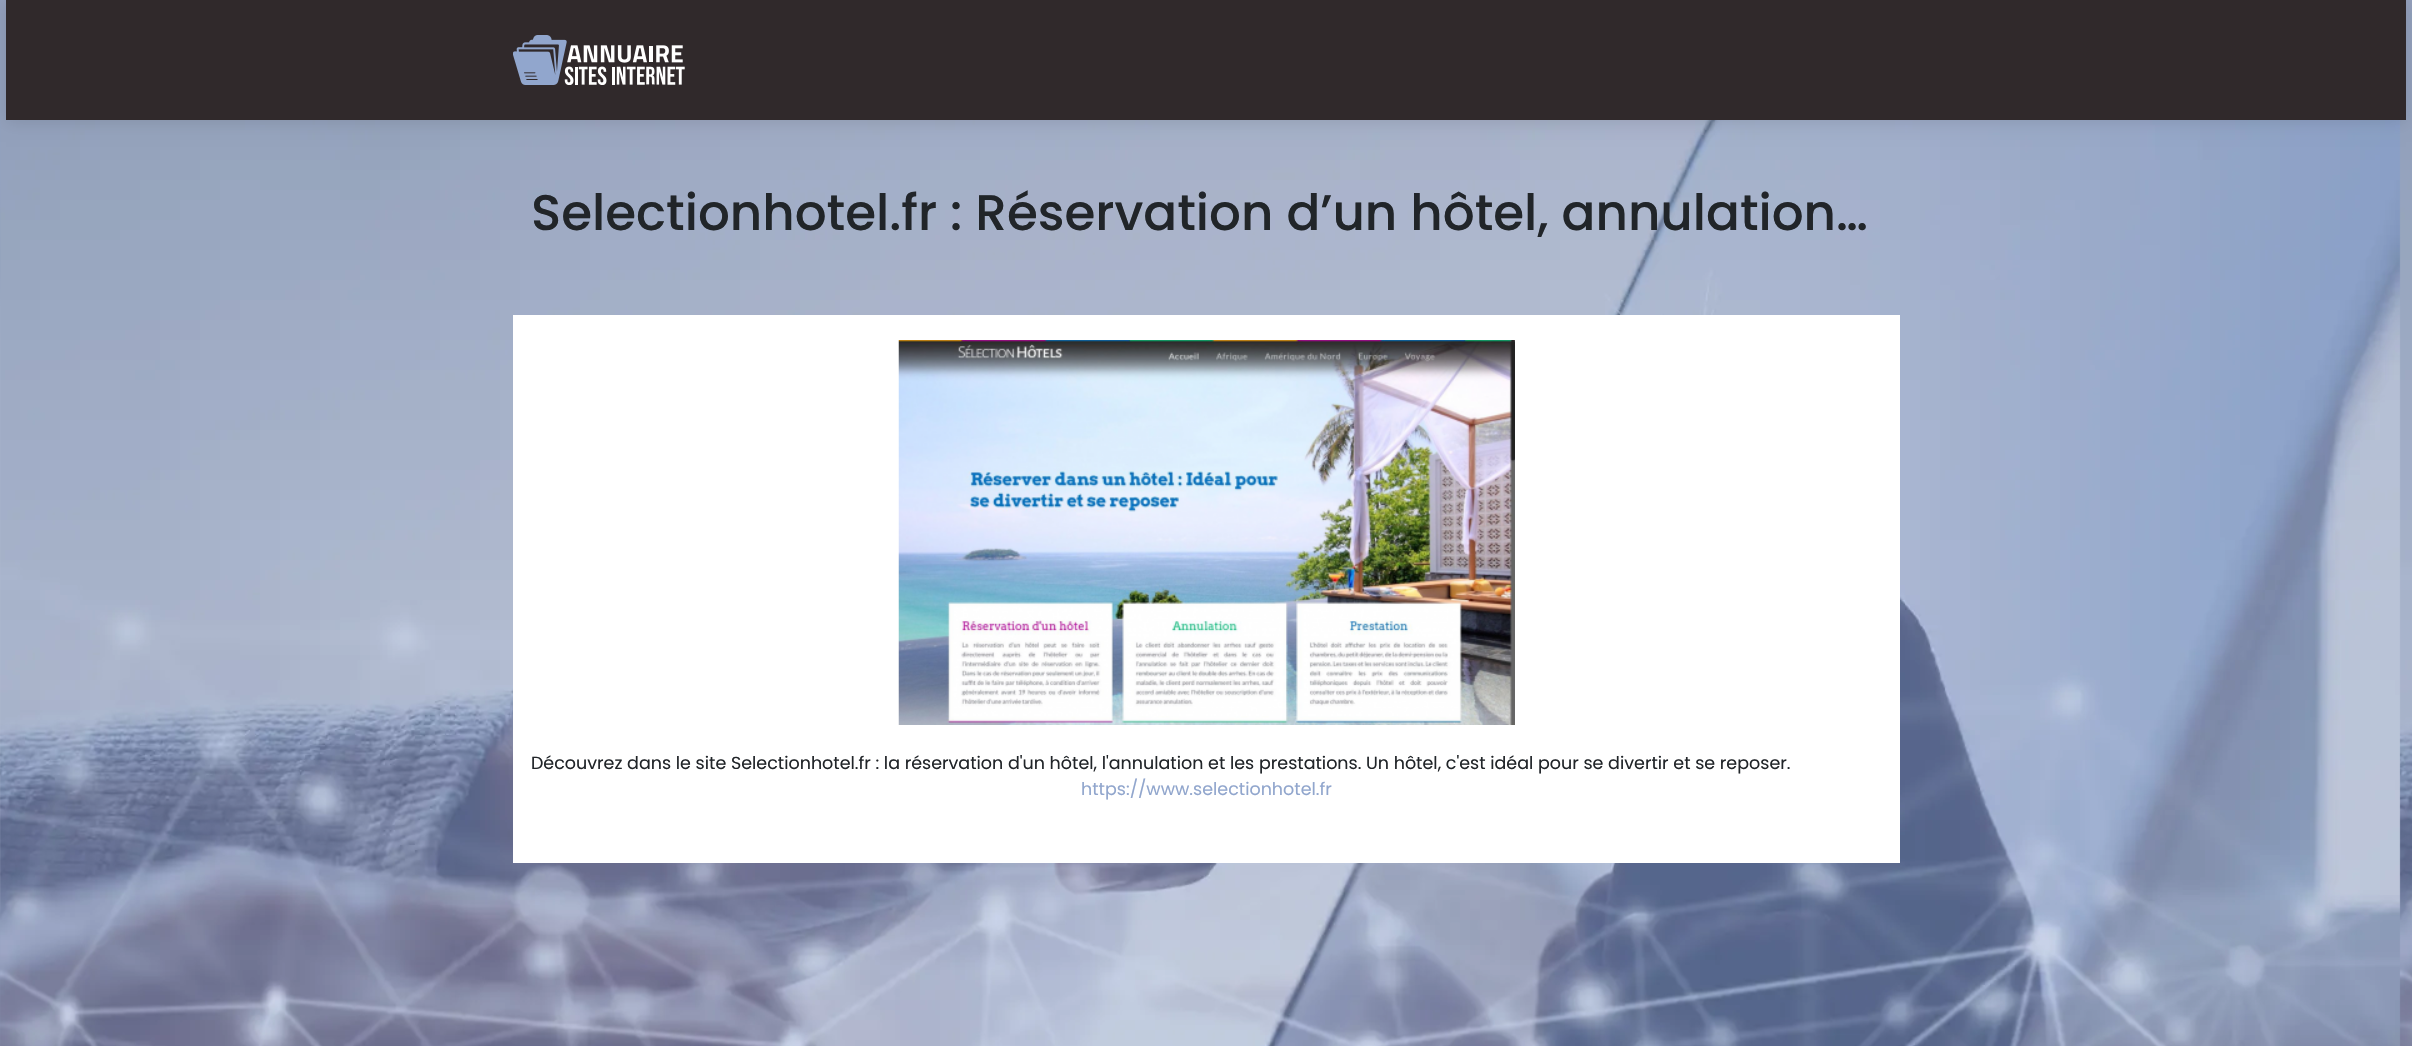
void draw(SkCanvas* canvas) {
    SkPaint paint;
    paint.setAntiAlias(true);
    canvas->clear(0xFFFFFFFF);
    canvas->drawImageRect(SkImages::DeferredFromEncodedData(SkData::MakeFromFileName("img1.png")), SkRect::MakeXYWH(0, 0, 2412, 1046), SkSamplingOptions());
    paint.setColor(0x1A000000);
    paint.setMaskFilter(SkMaskFilter::MakeBlur(kNormal_SkBlurStyle, 8));
    canvas->drawRect(SkRect::MakeXYWH(6, 3, 2400, 120), paint);
    paint.setMaskFilter(nullptr);
    paint.setColor(0xFF30292B);
    canvas->drawRect(SkRect::MakeXYWH(6, 0, 2400, 120), paint);
    canvas->drawImageRect(SkImages::DeferredFromEncodedData(SkData::MakeFromFileName("img2.png")), SkRect::MakeXYWH(513, 35, 172, 50), SkSamplingOptions());
    SkFont font1(fontMgr->matchFamilyStyle("Poppins", SkFontStyle(500, SkFontStyle::kNormal_Width, SkFontStyle::kUpright_Slant)), 50);
    font1.setSubpixel(true);
    paint.setColor(0xFF212529);
    canvas->drawString("Selectionhotel.fr : Réservation d’un hôtel, annulation…", 531, 230, font1, paint);
    paint.setColor(0xFFFFFFFF);
    canvas->drawRect(SkRect::MakeXYWH(513, 315, 1387, 548), paint);
    canvas->drawImageRect(SkImages::DeferredFromEncodedData(SkData::MakeFromFileName("img3.png")), SkRect::MakeXYWH(898, 340, 617, 385), SkSamplingOptions());
    SkFont font2(fontMgr->matchFamilyStyle("Poppins", SkFontStyle::Normal()), 17.5f);
    font2.setSubpixel(true);
    paint.setColor(0xFF212529);
    canvas->drawString("Découvrez dans le site Selectionhotel.fr : la réservation d'un hôtel, l'annulation et les prestations. Un hôtel, c'est idéal pour se divertir et se reposer.", 531, 769, font2, paint);
    paint.setColor(0xFF91A6CD);
    canvas->drawString("https://www.selectionhotel.fr", 1081, 795, font2, paint);
}
